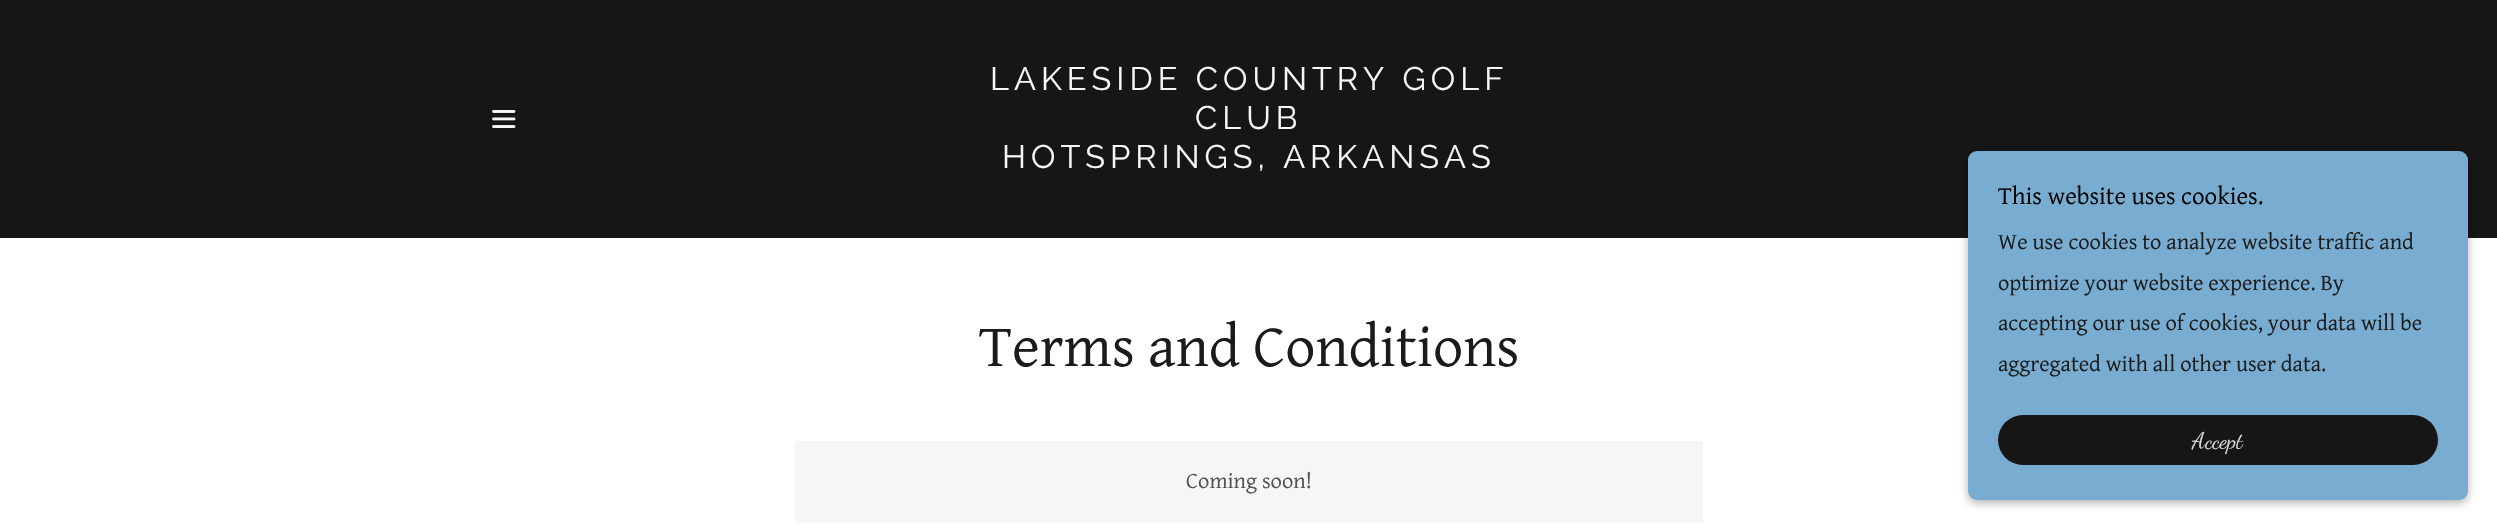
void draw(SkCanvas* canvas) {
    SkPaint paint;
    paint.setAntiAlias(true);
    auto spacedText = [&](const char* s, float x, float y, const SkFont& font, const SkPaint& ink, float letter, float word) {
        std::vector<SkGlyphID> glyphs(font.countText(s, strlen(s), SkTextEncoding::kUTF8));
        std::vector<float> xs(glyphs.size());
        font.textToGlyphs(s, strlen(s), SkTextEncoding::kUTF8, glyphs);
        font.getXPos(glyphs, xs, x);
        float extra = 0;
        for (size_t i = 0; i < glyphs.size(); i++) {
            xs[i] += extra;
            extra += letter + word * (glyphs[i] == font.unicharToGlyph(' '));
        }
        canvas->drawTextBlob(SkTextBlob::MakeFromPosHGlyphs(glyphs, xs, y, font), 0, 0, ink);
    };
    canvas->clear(0xFFFFFFFF);
    paint.setColor(0xFF161616);
    canvas->drawRect(SkRect::MakeXYWH(0, 0, 2497, 238), paint);
    canvas->drawImageRect(SkImages::DeferredFromEncodedData(SkData::MakeFromFileName("img1.png")), SkRect::MakeXYWH(492, 110, 24, 18), SkSamplingOptions());
    SkFont font1(fontMgr->matchFamilyStyle("Raleway", SkFontStyle::Normal()), 32.5f);
    font1.setSubpixel(true);
    paint.setColor(0xFFF7F7F7);
    spacedText("LAKESIDE COUNTRY GOLF", 990, 90, font1, paint, 5, 0);
    spacedText("CLUB", 1195, 129, font1, paint, 5, 0);
    spacedText("HOTSPRINGS, ARKANSAS", 1002, 168, font1, paint, 5, 0);
    SkFont font2(fontMgr->matchFamilyStyle("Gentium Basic", SkFontStyle::Normal()), 60);
    font2.setSubpixel(true);
    paint.setColor(0xFF1B1B1B);
    canvas->drawString("Terms and Conditions", 979, 366, font2, paint);
    paint.setColor(0xFFF6F6F6);
    canvas->drawRect(SkRect::MakeXYWH(795, 441, 908, 82), paint);
    SkFont font3(fontMgr->matchFamilyStyle("Gentium Basic", SkFontStyle::Normal()), 22.5f);
    font3.setSubpixel(true);
    paint.setColor(0xFF525252);
    canvas->drawString("Coming soon!", 1186, 488, font3, paint);
    paint.setColor(0x4D000000);
    paint.setMaskFilter(SkMaskFilter::MakeBlur(kNormal_SkBlurStyle, 4));
    canvas->drawRoundRect(SkRect::MakeXYWH(1968, 154, 500, 349), 9, 9, paint);
    paint.setMaskFilter(nullptr);
    paint.setColor(0xFF78ADD1);
    canvas->drawRoundRect(SkRect::MakeXYWH(1968, 151, 500, 349), 9, 9, paint);
    SkFont font4(fontMgr->matchFamilyStyle("Gentium Basic", SkFontStyle::Normal()), 25);
    font4.setSubpixel(true);
    paint.setColor(0xFF000000);
    canvas->drawString("This website uses cookies.", 1998, 204, font4, paint);
    paint.setColor(0xFF1B1B1B);
    canvas->drawString("We use cookies to analyze website traffic and", 1998, 249, font3, paint);
    canvas->drawString("optimize your website experience. By", 1998, 290, font3, paint);
    canvas->drawString("accepting our use of cookies, your data will be", 1998, 330, font3, paint);
    canvas->drawString("aggregated with all other user data.", 1998, 371, font3, paint);
    paint.setColor(0xFF161616);
    canvas->drawRoundRect(SkRect::MakeXYWH(1998, 415, 440, 50), 25, 25, paint);
    SkFont font5(fontMgr->matchFamilyStyle("Dancing Script", SkFontStyle::Normal()), 22.5f);
    font5.setSubpixel(true);
    paint.setColor(0xFFDBDBDB);
    canvas->drawString("Accept", 2192, 448, font5, paint);
}
